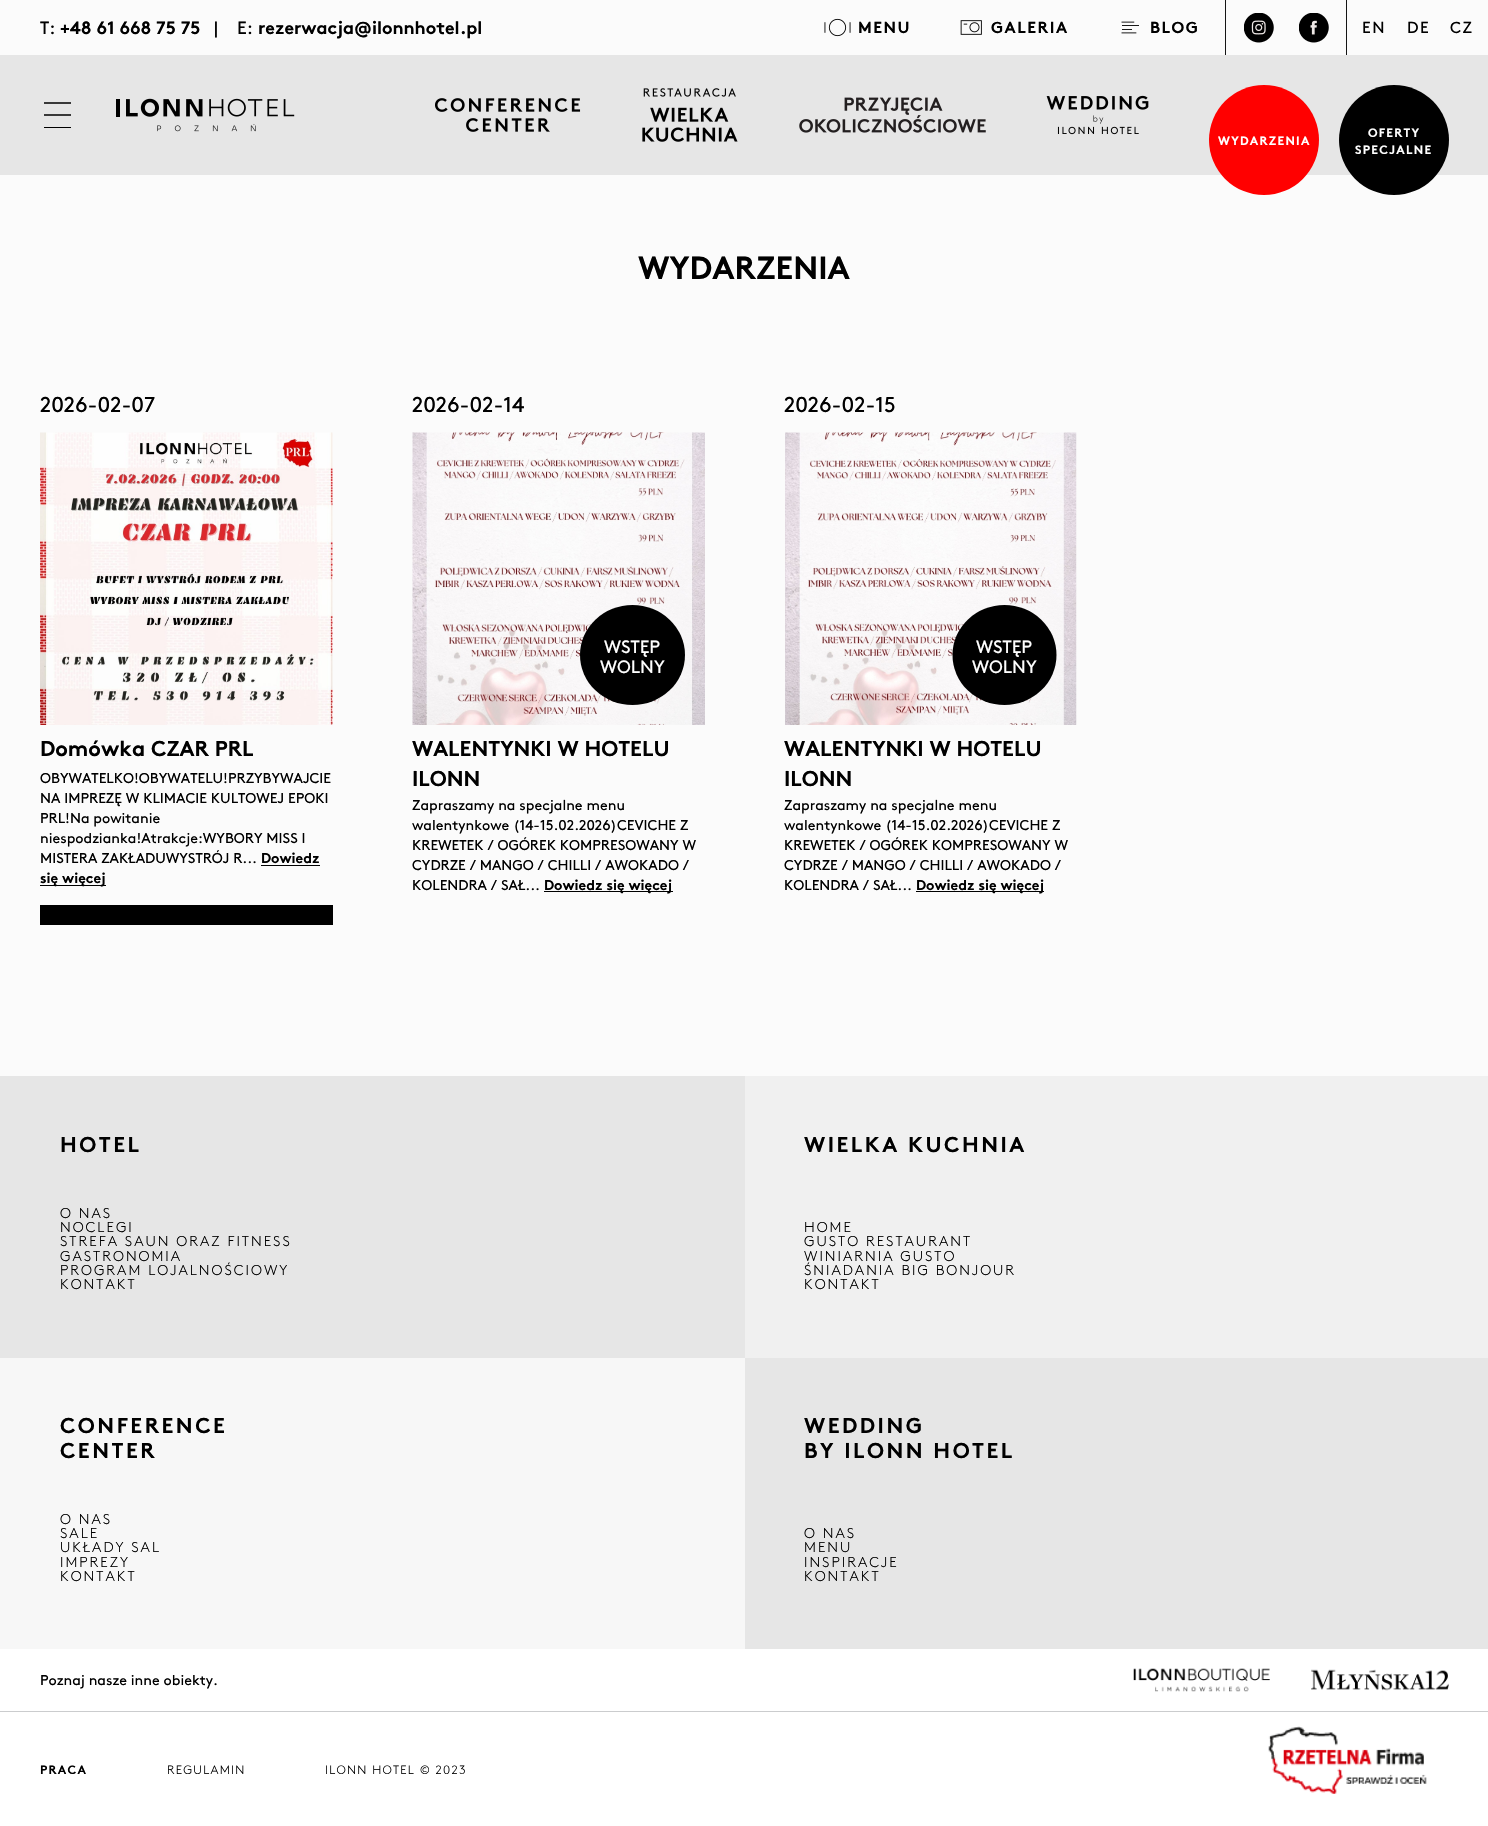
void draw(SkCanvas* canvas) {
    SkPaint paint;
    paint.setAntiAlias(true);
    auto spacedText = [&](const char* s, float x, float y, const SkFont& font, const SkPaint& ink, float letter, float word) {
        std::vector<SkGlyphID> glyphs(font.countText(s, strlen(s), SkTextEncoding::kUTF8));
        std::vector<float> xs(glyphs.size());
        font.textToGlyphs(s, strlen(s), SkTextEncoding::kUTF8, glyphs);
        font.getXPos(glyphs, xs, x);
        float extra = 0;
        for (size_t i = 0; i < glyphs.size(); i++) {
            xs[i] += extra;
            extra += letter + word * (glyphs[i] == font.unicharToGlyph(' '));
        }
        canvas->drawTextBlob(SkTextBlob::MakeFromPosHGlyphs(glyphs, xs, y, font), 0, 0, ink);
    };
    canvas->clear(0xFFFBFBFB);
    SkFont font1(fontMgr->matchFamilyStyle("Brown", SkFontStyle::Normal()), 17.9f);
    font1.setSubpixel(true);
    paint.setColor(0xFF000000);
    canvas->drawString("T:", 40, 34, font1, paint);
    SkFont font2(fontMgr->matchFamilyStyle("Brown", SkFontStyle::Bold()), 17.9f);
    font2.setSubpixel(true);
    canvas->drawString("+48 61 668 75 75", 60, 34, font2, paint);
    canvas->drawString("|", 214, 34, font1, paint);
    canvas->drawString("E:", 237, 34, font1, paint);
    canvas->drawString("rezerwacja@ilonnhotel.pl", 258, 34, font2, paint);
    canvas->drawImageRect(SkImages::DeferredFromEncodedData(SkData::MakeFromFileName("img1.png")), SkRect::MakeXYWH(824, 18, 27, 19), SkSamplingOptions());
    SkFont font3(fontMgr->matchFamilyStyle("Brown", SkFontStyle::Bold()), 16);
    font3.setSubpixel(true);
    spacedText("MENU", 858, 33, font3, paint, 1.5f, 0);
    canvas->drawImageRect(SkImages::DeferredFromEncodedData(SkData::MakeFromFileName("img2.png")), SkRect::MakeXYWH(960, 20, 22, 15), SkSamplingOptions());
    spacedText("GALERIA", 991, 33, font3, paint, 1.5f, 0);
    canvas->drawImageRect(SkImages::DeferredFromEncodedData(SkData::MakeFromFileName("img3.png")), SkRect::MakeXYWH(1121, 21, 18, 13), SkSamplingOptions());
    spacedText("BLOG", 1150, 33, font3, paint, 1.5f, 0);
    paint.setColor(0xFF151515);
    canvas->drawRect(SkRect::MakeXYWH(1225, 0, 1, 55), paint);
    canvas->drawImageRect(SkImages::DeferredFromEncodedData(SkData::MakeFromFileName("img4.png")), SkRect::MakeXYWH(1244, 13, 30, 30), SkSamplingOptions());
    canvas->drawImageRect(SkImages::DeferredFromEncodedData(SkData::MakeFromFileName("img5.png")), SkRect::MakeXYWH(1299, 13, 30, 30), SkSamplingOptions());
    canvas->drawRect(SkRect::MakeXYWH(1346, 0, 1, 55), paint);
    SkFont font4(fontMgr->matchFamilyStyle("Brown", SkFontStyle::Normal()), 16);
    font4.setSubpixel(true);
    paint.setColor(0xFF000000);
    spacedText("EN", 1362, 33, font4, paint, 1.5f, 0);
    spacedText("DE", 1407, 33, font4, paint, 1.5f, 0);
    spacedText("CZ", 1450, 33, font4, paint, 1.5f, 0);
    paint.setColor(0xFFE6E6E6);
    canvas->drawRect(SkRect::MakeXYWH(0, 55, 1488, 120), paint);
    paint.setStyle(SkPaint::kStroke_Style);
    paint.setStrokeWidth(1.3f);
    paint.setColor(0xFF000000);
    canvas->drawPath(SkPathBuilder().moveTo(44, 103).lineTo(71, 103).moveTo(44, 115).lineTo(71, 115).detach(), paint);
    paint.setStyle(SkPaint::kFill_Style);
    canvas->drawRect(SkRect::MakeXYWH(44, 127, 27, 1), paint);
    canvas->drawImageRect(SkImages::DeferredFromEncodedData(SkData::MakeFromFileName("img6.png")), SkRect::MakeXYWH(116, 98, 179, 34), SkSamplingOptions());
    canvas->drawImageRect(SkImages::DeferredFromEncodedData(SkData::MakeFromFileName("img7.png")), SkRect::MakeXYWH(435, 98, 146, 34), SkSamplingOptions());
    canvas->drawImageRect(SkImages::DeferredFromEncodedData(SkData::MakeFromFileName("img8.png")), SkRect::MakeXYWH(642, 88, 96, 54), SkSamplingOptions());
    canvas->drawImageRect(SkImages::DeferredFromEncodedData(SkData::MakeFromFileName("img9.png")), SkRect::MakeXYWH(799, 97, 187, 36), SkSamplingOptions());
    canvas->drawImageRect(SkImages::DeferredFromEncodedData(SkData::MakeFromFileName("img10.png")), SkRect::MakeXYWH(1046, 95, 103, 40), SkSamplingOptions());
    paint.setColor(0xFFFF0000);
    canvas->drawCircle(1264, 140, 55, paint);
    SkFont font5(fontMgr->matchFamilyStyle("Brown", SkFontStyle::Bold()), 12.1f);
    font5.setSubpixel(true);
    paint.setColor(0xFFFFFFFF);
    spacedText("WYDARZENIA", 1218, 145, font5, paint, 1.25f, 0);
    paint.setColor(0xFF000000);
    canvas->drawCircle(1394, 140, 55, paint);
    paint.setColor(0xFFFFFFFF);
    spacedText("OFERTY", 1368, 137, font5, paint, 1.25f, 0);
    spacedText("SPECJALNE", 1355, 154, font5, paint, 1.25f, 0);
    SkFont font6(fontMgr->matchFamilyStyle("Brown", SkFontStyle::Bold()), 32);
    font6.setSubpixel(true);
    paint.setColor(0xFF000000);
    canvas->drawString("WYDARZENIA", 638, 279, font6, paint);
    SkFont font7(fontMgr->matchFamilyStyle("Brown", SkFontStyle::Normal()), 21.5f);
    font7.setSubpixel(true);
    canvas->drawString("2026-02-07", 40, 412, font7, paint);
    canvas->drawImageRect(SkImages::DeferredFromEncodedData(SkData::MakeFromFileName("img11.png")), SkRect::MakeXYWH(40, 432, 293, 293), SkSamplingOptions());
    SkFont font8(fontMgr->matchFamilyStyle("Brown", SkFontStyle::Bold()), 21.5f);
    font8.setSubpixel(true);
    canvas->drawString("Domówka CZAR PRL", 40, 756, font8, paint);
    SkFont font9(fontMgr->matchFamilyStyle("Brown", SkFontStyle::Normal()), 14.25f);
    font9.setSubpixel(true);
    canvas->drawString("OBYWATELKO!OBYWATELU!PRZYBYWAJCIE", 40, 783, font9, paint);
    canvas->drawString("NA IMPREZĘ W KLIMACIE KULTOWEJ EPOKI", 40, 803, font9, paint);
    canvas->drawString("PRL!Na powitanie", 40, 823, font9, paint);
    canvas->drawString("niespodzianka!Atrakcje:WYBORY MISS I", 40, 843, font9, paint);
    canvas->drawString("MISTERA ZAKŁADUWYSTRÓJ R...", 40, 863, font9, paint);
    SkFont font10(fontMgr->matchFamilyStyle("Brown", SkFontStyle::Bold()), 14.25f);
    font10.setSubpixel(true);
    canvas->drawString("Dowiedz", 261, 863, font10, paint);
    canvas->drawRect(SkRect::MakeXYWH(261, 865, 59, 1), paint);
    canvas->drawRect(SkRect::MakeXYWH(40, 885, 66, 1), paint);
    canvas->drawString("się więcej", 40, 883, font10, paint);
    canvas->drawRect(SkRect::MakeXYWH(40, 905, 293, 20), paint);
    canvas->drawString("2026-02-14", 412, 412, font7, paint);
    canvas->drawImageRect(SkImages::DeferredFromEncodedData(SkData::MakeFromFileName("img12.png")), SkRect::MakeXYWH(412, 432, 293, 293), SkSamplingOptions());
    canvas->drawOval(SkRect::MakeXYWH(580, 605, 105, 100), paint);
    paint.setColor(0xFFFFFFFF);
    canvas->drawString("WSTĘP", 604, 653, font1, paint);
    canvas->drawString("WOLNY", 600, 673, font1, paint);
    paint.setColor(0xFF000000);
    canvas->drawString("WALENTYNKI W HOTELU", 412, 756, font8, paint);
    canvas->drawString("ILONN", 412, 786, font8, paint);
    canvas->drawString("Zapraszamy na specjalne menu", 412, 810, font9, paint);
    canvas->drawString("walentynkowe (14-15.02.2026)CEVICHE Z", 412, 830, font9, paint);
    canvas->drawString("KREWETEK / OGÓREK KOMPRESOWANY W", 412, 850, font9, paint);
    canvas->drawString("CYDRZE / MANGO / CHILLI / AWOKADO /", 412, 870, font9, paint);
    canvas->drawString("KOLENDRA / SAŁ...", 412, 890, font9, paint);
    canvas->drawRect(SkRect::MakeXYWH(544, 891, 129, 1), paint);
    canvas->drawString("Dowiedz się więcej", 544, 890, font10, paint);
    canvas->drawString("2026-02-15", 784, 412, font7, paint);
    canvas->drawImageRect(SkImages::DeferredFromEncodedData(SkData::MakeFromFileName("img13.png")), SkRect::MakeXYWH(785, 432, 292, 293), SkSamplingOptions());
    canvas->drawOval(SkRect::MakeXYWH(952.5f, 605, 104, 100), paint);
    paint.setColor(0xFFFFFFFF);
    canvas->drawString("WSTĘP", 976, 653, font1, paint);
    canvas->drawString("WOLNY", 972, 673, font1, paint);
    paint.setColor(0xFF000000);
    canvas->drawString("WALENTYNKI W HOTELU", 784, 756, font8, paint);
    canvas->drawString("ILONN", 784, 786, font8, paint);
    canvas->drawString("Zapraszamy na specjalne menu", 784, 810, font9, paint);
    canvas->drawString("walentynkowe (14-15.02.2026)CEVICHE Z", 784, 830, font9, paint);
    canvas->drawString("KREWETEK / OGÓREK KOMPRESOWANY W", 784, 850, font9, paint);
    canvas->drawString("CYDRZE / MANGO / CHILLI / AWOKADO /", 784, 870, font9, paint);
    canvas->drawString("KOLENDRA / SAŁ...", 784, 890, font9, paint);
    canvas->drawRect(SkRect::MakeXYWH(916, 891, 128, 1), paint);
    canvas->drawString("Dowiedz się więcej", 916, 890, font10, paint);
    paint.setColor(0xFFE6E6E6);
    canvas->drawRect(SkRect::MakeXYWH(0, 1076, 745, 282), paint);
    paint.setColor(0xFF000000);
    spacedText("HOTEL", 60, 1152, font8, paint, 2.5f, 0);
    SkFont font11(fontMgr->matchFamilyStyle("Brown", SkFontStyle(300, SkFontStyle::kNormal_Width, SkFontStyle::kUpright_Slant)), 14.25f);
    font11.setSubpixel(true);
    spacedText("O NAS", 60, 1218, font11, paint, 2, 0);
    spacedText("NOCLEGI", 60, 1232, font11, paint, 2, 0);
    spacedText("STREFA SAUN ORAZ FITNESS", 60, 1246, font11, paint, 2, 0);
    spacedText("GASTRONOMIA", 60, 1261, font11, paint, 2, 0);
    spacedText("PROGRAM LOJALNOŚCIOWY", 60, 1275, font11, paint, 2, 0);
    spacedText("KONTAKT", 60, 1289, font11, paint, 2, 0);
    paint.setColor(0xFFF0F0F0);
    canvas->drawRect(SkRect::MakeXYWH(745, 1076, 743, 282), paint);
    paint.setColor(0xFF000000);
    spacedText("WIELKA KUCHNIA", 804, 1152, font8, paint, 2.5f, 0);
    spacedText("HOME", 804, 1232, font11, paint, 2, 0);
    spacedText("GUSTO RESTAURANT", 804, 1246, font11, paint, 2, 0);
    spacedText("WINIARNIA GUSTO", 804, 1261, font11, paint, 2, 0);
    spacedText("ŚNIADANIA BIG BONJOUR", 804, 1275, font11, paint, 2, 0);
    spacedText("KONTAKT", 804, 1289, font11, paint, 2, 0);
    paint.setColor(0xFFF7F7F7);
    canvas->drawRect(SkRect::MakeXYWH(0, 1358, 745, 291), paint);
    paint.setColor(0xFF000000);
    spacedText("CONFERENCE", 60, 1433, font8, paint, 2.5f, 0);
    spacedText("CENTER", 60, 1458, font8, paint, 2.5f, 0);
    spacedText("O NAS", 60, 1524, font11, paint, 2, 0);
    spacedText("SALE", 60, 1538, font11, paint, 2, 0);
    spacedText("UKŁADY SAL", 60, 1552, font11, paint, 2, 0);
    spacedText("IMPREZY", 60, 1567, font11, paint, 2, 0);
    spacedText("KONTAKT", 60, 1581, font11, paint, 2, 0);
    paint.setColor(0xFFE6E6E6);
    canvas->drawRect(SkRect::MakeXYWH(745, 1358, 743, 291), paint);
    paint.setColor(0xFF000000);
    spacedText("WEDDING", 804, 1433, font8, paint, 2.5f, 0);
    spacedText("BY ILONN HOTEL", 804, 1458, font8, paint, 2.5f, 0);
    spacedText("O NAS", 804, 1538, font11, paint, 2, 0);
    spacedText("MENU", 804, 1552, font11, paint, 2, 0);
    spacedText("INSPIRACJE", 804, 1567, font11, paint, 2, 0);
    spacedText("KONTAKT", 804, 1581, font11, paint, 2, 0);
    paint.setColor(0xFFFFFFFF);
    canvas->drawRect(SkRect::MakeXYWH(0, 1649, 1488, 177), paint);
    paint.setColor(0xFF000000);
    canvas->drawString("Poznaj nasze inne obiekty.", 40, 1685, font9, paint);
    canvas->drawImageRect(SkImages::DeferredFromEncodedData(SkData::MakeFromFileName("img14.png")), SkRect::MakeXYWH(1133, 1668, 137, 24), SkSamplingOptions());
    canvas->drawImageRect(SkImages::DeferredFromEncodedData(SkData::MakeFromFileName("img15.png")), SkRect::MakeXYWH(1311, 1669, 138, 22), SkSamplingOptions());
    paint.setColor(0xFFCBCCCE);
    canvas->drawRect(SkRect::MakeXYWH(0, 1711, 1488, 1), paint);
    paint.setColor(0xFF000000);
    spacedText("PRACA", 40, 1774, font5, paint, 1.25f, 0);
    SkFont font12(fontMgr->matchFamilyStyle("Brown", SkFontStyle(300, SkFontStyle::kNormal_Width, SkFontStyle::kUpright_Slant)), 12.1f);
    font12.setSubpixel(true);
    spacedText("REGULAMIN", 167, 1774, font12, paint, 1.25f, 0);
    spacedText("ILONN HOTEL © 2023", 325, 1774, font12, paint, 1.25f, 0);
    canvas->drawImageRect(SkImages::DeferredFromEncodedData(SkData::MakeFromFileName("img16.png")), SkRect::MakeXYWH(1268, 1726, 159, 68), SkSamplingOptions());
}
